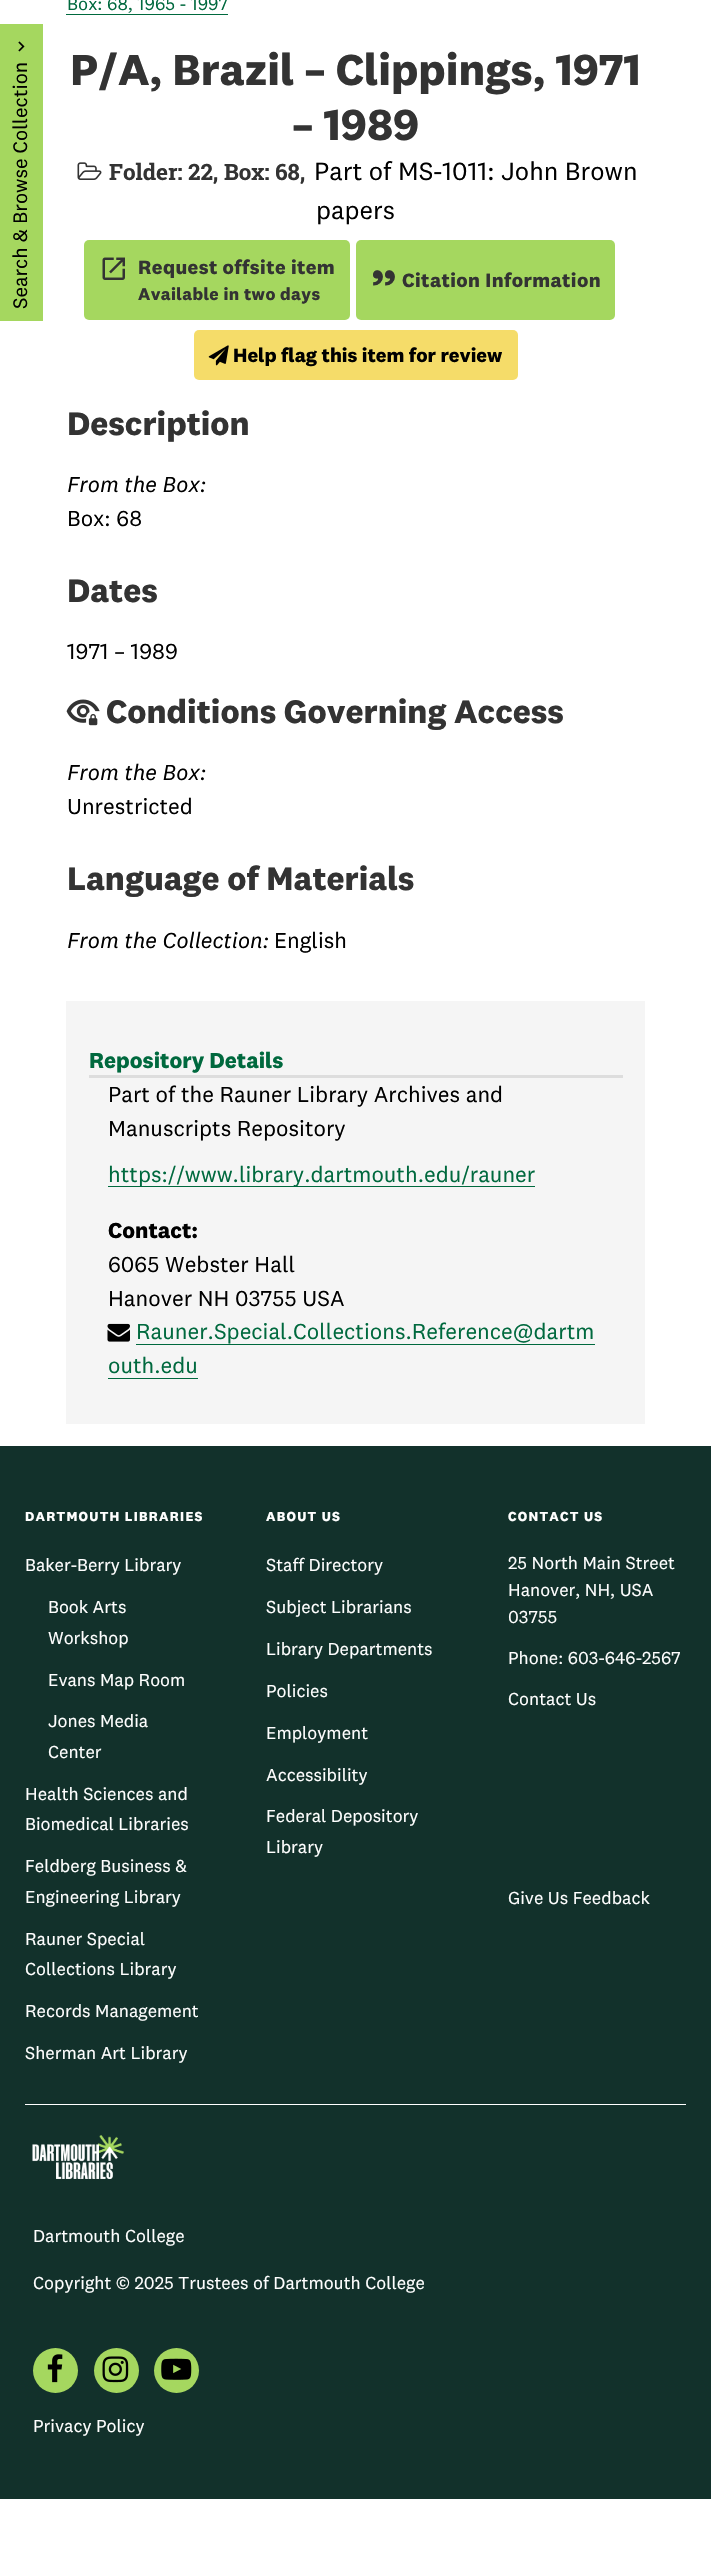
void draw(SkCanvas* canvas) {
    SkPaint paint;
    paint.setAntiAlias(true);
    auto spacedText = [&](const char* s, float x, float y, const SkFont& font, const SkPaint& ink, float letter, float word) {
        std::vector<SkGlyphID> glyphs(font.countText(s, strlen(s), SkTextEncoding::kUTF8));
        std::vector<float> xs(glyphs.size());
        font.textToGlyphs(s, strlen(s), SkTextEncoding::kUTF8, glyphs);
        font.getXPos(glyphs, xs, x);
        float extra = 0;
        for (size_t i = 0; i < glyphs.size(); i++) {
            xs[i] += extra;
            extra += letter + word * (glyphs[i] == font.unicharToGlyph(' '));
        }
        canvas->drawTextBlob(SkTextBlob::MakeFromPosHGlyphs(glyphs, xs, y, font), 0, 0, ink);
    };
    canvas->clear(0xFFFFFFFF);
    paint.setColor(0xFFA5D75F);
    canvas->drawRect(SkRect::MakeXYWH(0, 24, 43, 297), paint);
    canvas->drawImageRect(SkImages::DeferredFromEncodedData(SkData::MakeFromFileName("img1.png")), SkRect::MakeXYWH(18, 41, 7, 11), SkSamplingOptions());
    SkFont font1(fontMgr->matchFamilyStyle("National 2", SkFontStyle::Normal()), 20.25f);
    font1.setSubpixel(true);
    paint.setColor(0xFF000000);
    canvas->save();
    canvas->rotate(-90, 27, 309);
    canvas->drawString("Search & Browse Collection", 27, 309, font1, paint);
    canvas->restore();
    SkFont font2(fontMgr->matchFamilyStyle("National 2", SkFontStyle::Normal()), 18.25f);
    font2.setSubpixel(true);
    paint.setColor(0xFF00693E);
    canvas->drawString("Box: 68, 1965 - 1997", 67, 10, font2, paint);
    canvas->drawRect(SkRect::MakeXYWH(66, 14, 162, 1), paint);
    SkFont font3(fontMgr->matchFamilyStyle("National 2", SkFontStyle::Bold()), 45);
    font3.setSubpixel(true);
    paint.setColor(0xFF333333);
    canvas->drawString("P/A, Brazil – Clippings, 1971", 70, 85, font3, paint);
    canvas->drawString("– 1989", 292, 140, font3, paint);
    canvas->drawImageRect(SkImages::DeferredFromEncodedData(SkData::MakeFromFileName("img2.png")), SkRect::MakeXYWH(77, 162, 25, 18), SkSamplingOptions());
    SkFont font4(fontMgr->matchFamilyStyle("Roboto Slab", SkFontStyle::Bold()), 22.5f);
    font4.setSubpixel(true);
    canvas->drawString("Folder: 22, Box: 68,", 109, 180, font4, paint);
    SkFont font5(fontMgr->matchFamilyStyle("National 2", SkFontStyle::Normal()), 25.9f);
    font5.setSubpixel(true);
    paint.setColor(0xFF000000);
    canvas->drawString("Part of MS-1011: John Brown", 314, 180, font5, paint);
    canvas->drawString("papers", 316, 219, font5, paint);
    paint.setColor(0xFFA5D75F);
    canvas->drawRoundRect(SkRect::MakeXYWH(84, 240, 266, 80), 5, 5, paint);
    canvas->drawImageRect(SkImages::DeferredFromEncodedData(SkData::MakeFromFileName("img3.png")), SkRect::MakeXYWH(102, 257, 23, 23), SkSamplingOptions());
    SkFont font6(fontMgr->matchFamilyStyle("National 2", SkFontStyle::Bold()), 20);
    font6.setSubpixel(true);
    paint.setColor(0xFF333333);
    spacedText("Request offsite item", 138, 274, font6, paint, 0.4f, 0);
    SkFont font7(fontMgr->matchFamilyStyle("National 2", SkFontStyle::Bold()), 17.5f);
    font7.setSubpixel(true);
    spacedText("Available in two days", 138, 300, font7, paint, 0.4f, 0);
    paint.setColor(0xFFA5D75F);
    canvas->drawRoundRect(SkRect::MakeXYWH(356, 240, 259, 80), 5, 5, paint);
    SkFont font8(fontMgr->matchFamilyStyle("National 2", SkFontStyle::Bold()), 50);
    font8.setSubpixel(true);
    paint.setColor(0xFF333333);
    spacedText("”", 371, 307, font8, paint, 0.4f, 0);
    spacedText("Citation Information", 402, 287, font6, paint, 0.4f, 0);
    paint.setColor(0xFFF5DC69);
    canvas->drawRoundRect(SkRect::MakeXYWH(194, 330, 324, 50), 5, 5, paint);
    canvas->drawImageRect(SkImages::DeferredFromEncodedData(SkData::MakeFromFileName("img4.png")), SkRect::MakeXYWH(208, 345, 21, 21), SkSamplingOptions());
    paint.setColor(0xFF000000);
    canvas->drawString("Help flag this item for review", 233, 362, font6, paint);
    SkFont font9(fontMgr->matchFamilyStyle("National 2", SkFontStyle::Bold()), 33.75f);
    font9.setSubpixel(true);
    paint.setColor(0xFF333333);
    canvas->drawString("Description", 67, 435, font9, paint);
    SkFont font10(fontMgr->matchFamilyStyle("National 2", SkFontStyle::Italic()), 22.5f);
    font10.setSubpixel(true);
    paint.setColor(0xFF000000);
    canvas->drawString("From the Box:", 67, 492, font10, paint);
    SkFont font11(fontMgr->matchFamilyStyle("National 2", SkFontStyle::Normal()), 22.5f);
    font11.setSubpixel(true);
    canvas->drawString("Box: 68", 67, 526, font11, paint);
    paint.setColor(0xFF333333);
    canvas->drawString("Dates", 67, 602, font9, paint);
    paint.setColor(0xFF000000);
    canvas->drawString("1971 – 1989", 67, 659, font11, paint);
    canvas->drawImageRect(SkImages::DeferredFromEncodedData(SkData::MakeFromFileName("img5.png")), SkRect::MakeXYWH(66, 699, 34, 27), SkSamplingOptions());
    paint.setColor(0xFF333333);
    canvas->drawString("Conditions Governing Access", 106, 723, font9, paint);
    paint.setColor(0xFF000000);
    canvas->drawString("From the Box:", 67, 780, font10, paint);
    canvas->drawString("Unrestricted", 67, 814, font11, paint);
    paint.setColor(0xFF333333);
    canvas->drawString("Language of Materials", 67, 890, font9, paint);
    paint.setColor(0xFF000000);
    canvas->drawString("From the Collection:", 67, 948, font10, paint);
    canvas->drawString("English", 274, 948, font11, paint);
    paint.setColor(0xFFF5F5F5);
    canvas->drawRect(SkRect::MakeXYWH(66, 1001, 579, 423), paint);
    paint.setColor(0xFFDDDDDD);
    canvas->drawRect(SkRect::MakeXYWH(89, 1075, 534, 3), paint);
    SkFont font12(fontMgr->matchFamilyStyle("National 2", SkFontStyle::Bold()), 22.5f);
    font12.setSubpixel(true);
    paint.setColor(0xFF00693E);
    canvas->drawString("Repository Details", 89, 1068, font12, paint);
    paint.setColor(0xFF000000);
    canvas->drawString("Part of the Rauner Library Archives and", 108, 1102, font11, paint);
    canvas->drawString("Manuscripts Repository", 108, 1136, font11, paint);
    paint.setColor(0xFF00693E);
    canvas->drawRect(SkRect::MakeXYWH(108, 1186, 427, 1), paint);
    canvas->drawString("https://www.library.dartmouth.edu/rauner", 108, 1182, font11, paint);
    paint.setColor(0xFF000000);
    canvas->drawString("Contact:", 108, 1238, font12, paint);
    canvas->drawString("6065 Webster Hall", 108, 1272, font11, paint);
    canvas->drawString("Hanover NH 03755 USA", 108, 1306, font11, paint);
    canvas->drawImageRect(SkImages::DeferredFromEncodedData(SkData::MakeFromFileName("img6.png")), SkRect::MakeXYWH(107, 1323, 23, 19), SkSamplingOptions());
    paint.setColor(0xFF00693E);
    canvas->drawString("Rauner.Special.Collections.Reference@dartm", 136, 1339, font11, paint);
    canvas->drawRect(SkRect::MakeXYWH(136, 1344, 459, 1), paint);
    canvas->drawString("outh.edu", 108, 1373, font11, paint);
    canvas->drawRect(SkRect::MakeXYWH(108, 1378, 90, 1), paint);
    paint.setColor(0xFF12312B);
    canvas->drawRect(SkRect::MakeXYWH(0, 1446, 711, 1053), paint);
    paint.setColor(0xFFFFFFFF);
    canvas->drawRect(SkRect::MakeXYWH(25, 2104, 661, 1), paint);
    SkFont font13(fontMgr->matchFamilyStyle("National 2", SkFontStyle::Bold()), 13.5f);
    font13.setSubpixel(true);
    spacedText("DARTMOUTH LIBRARIES", 25, 1521, font13, paint, 1.25f, 0);
    SkFont font14(fontMgr->matchFamilyStyle("National 2", SkFontStyle::Normal()), 18);
    font14.setSubpixel(true);
    canvas->drawString("Baker-Berry Library", 25, 1571, font14, paint);
    canvas->drawString("Book Arts", 48, 1613, font14, paint);
    canvas->drawString("Workshop", 48, 1644, font14, paint);
    canvas->drawString("Evans Map Room", 48, 1686, font14, paint);
    canvas->drawString("Jones Media", 48, 1727, font14, paint);
    canvas->drawString("Center", 48, 1758, font14, paint);
    canvas->drawString("Health Sciences and", 25, 1800, font14, paint);
    canvas->drawString("Biomedical Libraries", 25, 1830, font14, paint);
    canvas->drawString("Feldberg Business &", 25, 1872, font14, paint);
    canvas->drawString("Engineering Library", 25, 1903, font14, paint);
    canvas->drawString("Rauner Special", 25, 1945, font14, paint);
    canvas->drawString("Collections Library", 25, 1975, font14, paint);
    canvas->drawString("Records Management", 25, 2017, font14, paint);
    canvas->drawString("Sherman Art Library", 25, 2059, font14, paint);
    spacedText("ABOUT US", 266, 1521, font13, paint, 1.25f, 0);
    canvas->drawString("Staff Directory", 266, 1571, font14, paint);
    canvas->drawString("Subject Librarians", 266, 1613, font14, paint);
    canvas->drawString("Library Departments", 266, 1655, font14, paint);
    canvas->drawString("Policies", 266, 1697, font14, paint);
    canvas->drawString("Employment", 266, 1739, font14, paint);
    canvas->drawString("Accessibility", 266, 1781, font14, paint);
    canvas->drawString("Federal Depository", 266, 1822, font14, paint);
    canvas->drawString("Library", 266, 1853, font14, paint);
    spacedText("CONTACT US", 508, 1521, font13, paint, 1.25f, 0);
    canvas->drawString("25 North Main Street", 508, 1569, font14, paint);
    canvas->drawString("Hanover, NH, USA", 508, 1596, font14, paint);
    canvas->drawString("03755", 508, 1623, font14, paint);
    canvas->drawString("Phone: 603-646-2567", 508, 1664, font14, paint);
    canvas->drawString("Contact Us", 508, 1705, font14, paint);
    canvas->drawString("Give Us Feedback", 508, 1904, font14, paint);
    canvas->drawImageRect(SkImages::DeferredFromEncodedData(SkData::MakeFromFileName("img7.png")), SkRect::MakeXYWH(32, 2135, 92, 44), SkSamplingOptions());
    canvas->drawString("Dartmouth College", 33, 2242, font14, paint);
    canvas->drawString("Copyright © 2025 Trustees of Dartmouth College", 33, 2289, font14, paint);
    paint.setColor(0xFFA5D75F);
    canvas->drawCircle(55.5f, 2370.5f, 22.5f, paint);
    canvas->drawImageRect(SkImages::DeferredFromEncodedData(SkData::MakeFromFileName("img8.png")), SkRect::MakeXYWH(47, 2354, 16, 29), SkSamplingOptions());
    canvas->drawCircle(116.5f, 2370.5f, 22.5f, paint);
    canvas->drawImageRect(SkImages::DeferredFromEncodedData(SkData::MakeFromFileName("img9.png")), SkRect::MakeXYWH(102, 2356, 27, 27), SkSamplingOptions());
    canvas->drawCircle(176.5f, 2370.5f, 22.5f, paint);
    canvas->drawImageRect(SkImages::DeferredFromEncodedData(SkData::MakeFromFileName("img10.png")), SkRect::MakeXYWH(161, 2358, 31, 22), SkSamplingOptions());
    paint.setColor(0xFFFFFFFF);
    canvas->drawString("Privacy Policy", 33, 2432, font14, paint);
}
